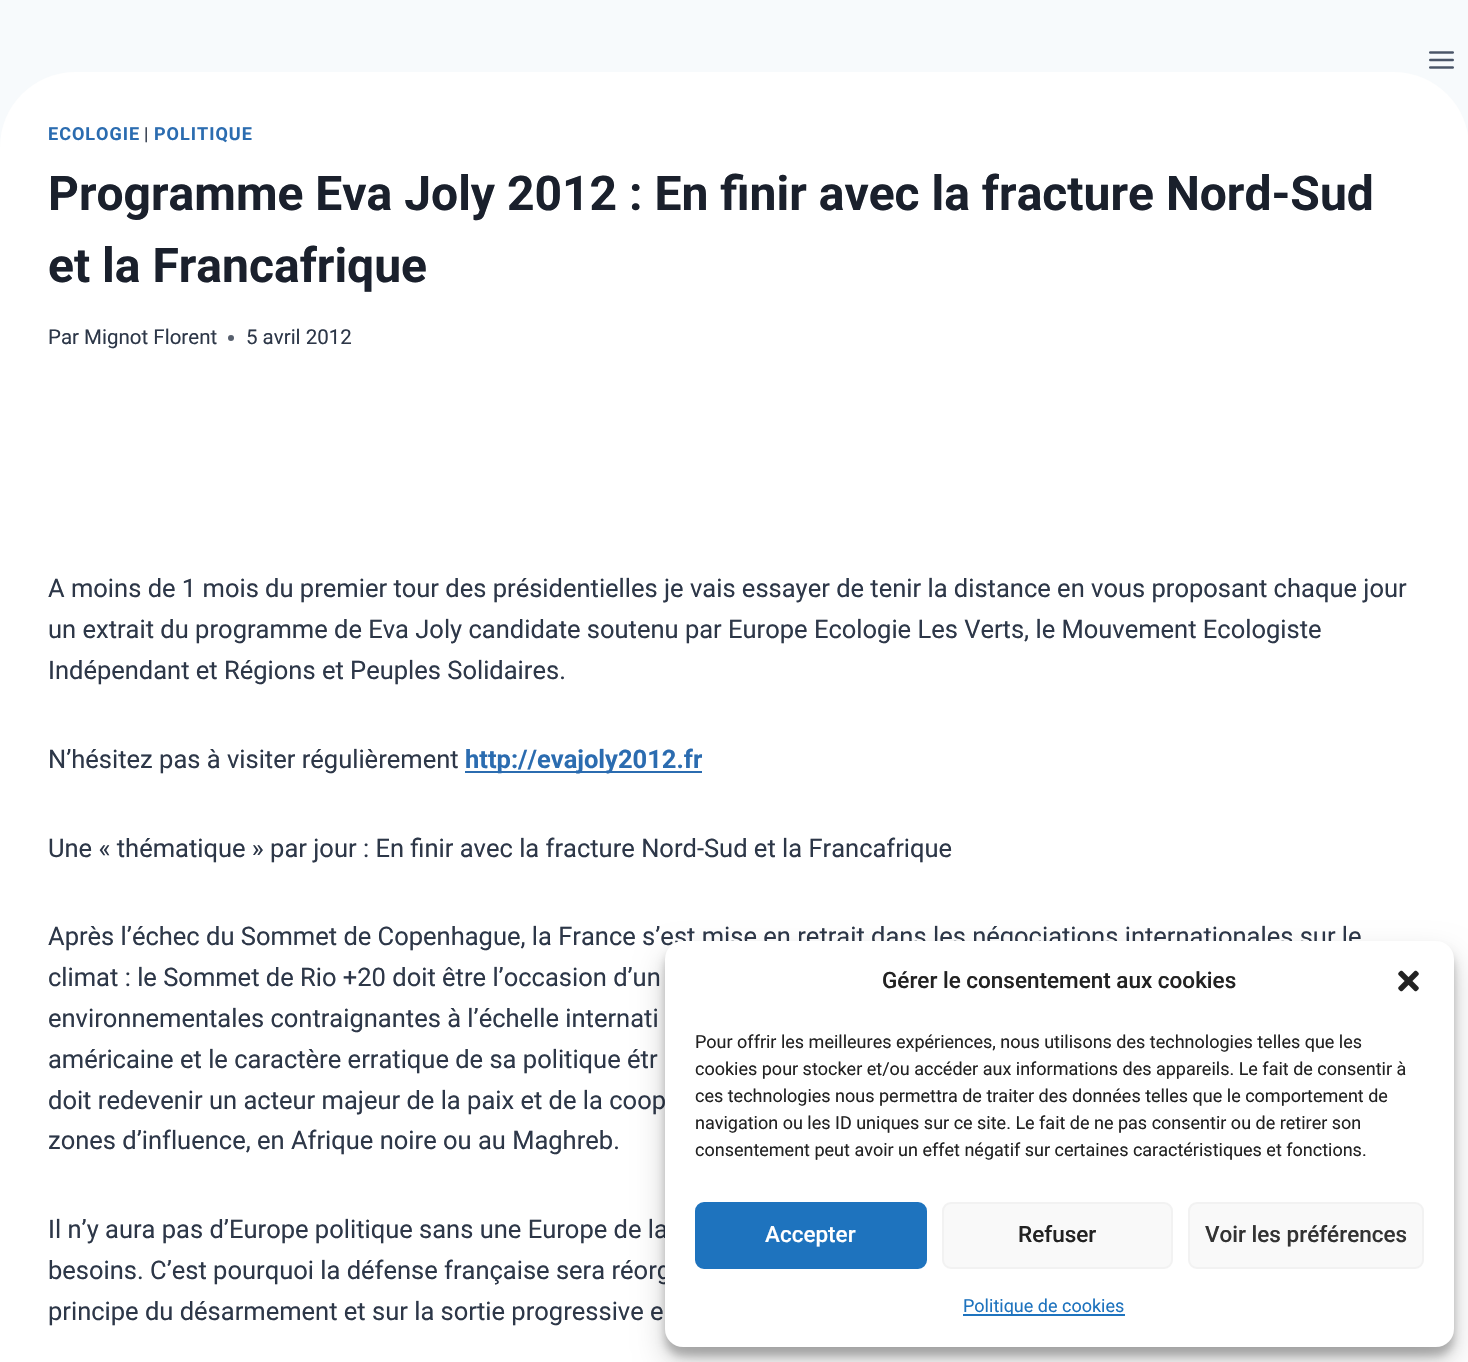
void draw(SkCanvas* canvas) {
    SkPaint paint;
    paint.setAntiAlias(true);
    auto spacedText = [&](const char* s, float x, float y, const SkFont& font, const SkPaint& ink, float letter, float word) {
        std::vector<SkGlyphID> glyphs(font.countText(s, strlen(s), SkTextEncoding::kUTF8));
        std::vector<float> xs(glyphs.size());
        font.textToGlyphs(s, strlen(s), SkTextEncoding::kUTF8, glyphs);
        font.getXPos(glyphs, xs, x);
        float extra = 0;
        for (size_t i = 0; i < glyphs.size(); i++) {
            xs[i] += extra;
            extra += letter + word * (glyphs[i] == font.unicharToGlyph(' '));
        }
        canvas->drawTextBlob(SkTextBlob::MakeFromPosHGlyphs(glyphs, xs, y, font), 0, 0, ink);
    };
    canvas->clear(0xFFF7FAFC);
    canvas->drawImageRect(SkImages::DeferredFromEncodedData(SkData::MakeFromFileName("img1.png")), SkRect::MakeXYWH(1429, 51, 25, 18), SkSamplingOptions());
    paint.setColor(0xFFFFFFFF);
    canvas->drawRoundRect(SkRect::MakeXYWH(0, 72, 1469, 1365), 75, 75, paint);
    SkFont font1(fontMgr->matchFamilyStyle("Roboto", SkFontStyle::Bold()), 18);
    font1.setSubpixel(true);
    paint.setColor(0xFF2B6CB0);
    spacedText("ECOLOGIE", 48, 140, font1, paint, 1, 0);
    SkFont font2(fontMgr->matchFamilyStyle("Roboto", SkFontStyle::Normal()), 18);
    font2.setSubpixel(true);
    paint.setColor(0xFF2D3748);
    spacedText("|", 144, 140, font2, paint, 1, 0);
    paint.setColor(0xFF2B6CB0);
    spacedText("POLITIQUE", 154, 140, font1, paint, 1, 0);
    SkFont font3(fontMgr->matchFamilyStyle("Roboto", SkFontStyle::Bold()), 48);
    font3.setSubpixel(true);
    paint.setColor(0xFF1A202C);
    canvas->drawString("Programme Eva Joly 2012 : En ﬁnir avec la fracture Nord-Sud", 48, 210, font3, paint);
    canvas->drawString("et la Francafrique", 48, 282, font3, paint);
    SkFont font4(fontMgr->matchFamilyStyle("Roboto", SkFontStyle::Normal()), 20.5f);
    font4.setSubpixel(true);
    paint.setColor(0xFF2D3748);
    canvas->drawString("Par Mignot Florent", 48, 344, font4, paint);
    paint.setColor(0xFF575F6D);
    canvas->drawCircle(231, 338, 3, paint);
    paint.setColor(0xFF2D3748);
    canvas->drawString("5 avril 2012", 246, 344, font4, paint);
    SkFont font5(fontMgr->matchFamilyStyle("Roboto", SkFontStyle::Normal()), 25.5f);
    font5.setSubpixel(true);
    canvas->drawString("A moins de 1 mois du premier tour des présidentielles je vais essayer de tenir la distance en vous proposant chaque jour", 48, 597, font5, paint);
    canvas->drawString("un extrait du programme de Eva Joly candidate soutenu par Europe Ecologie Les Verts, le Mouvement Ecologiste", 48, 638, font5, paint);
    canvas->drawString("Indépendant et Régions et Peuples Solidaires.", 48, 679, font5, paint);
    canvas->drawString("N’hésitez pas à visiter régulièrement", 48, 768, font5, paint);
    paint.setColor(0xFF2B6CB0);
    canvas->drawRect(SkRect::MakeXYWH(465, 771, 237, 2), paint);
    SkFont font6(fontMgr->matchFamilyStyle("Roboto", SkFontStyle::Bold()), 25.5f);
    font6.setSubpixel(true);
    canvas->drawString("http://evajoly2012.fr", 465, 768, font6, paint);
    paint.setColor(0xFF2D3748);
    canvas->drawString("Une « thématique » par jour : En ﬁnir avec la fracture Nord-Sud et la Francafrique", 48, 857, font5, paint);
    canvas->drawString("Après l’échec du Sommet de Copenhague, la France s’est mise en retrait dans les négociations internationales sur le", 48, 945, font5, paint);
    canvas->drawString("climat : le Sommet de Rio +20 doit être l’occasion d’un", 48, 986, font5, paint);
    canvas->drawString("environnementales contraignantes à l’échelle internati", 48, 1027, font5, paint);
    canvas->drawString("américaine et le caractère erratique de sa politique étr", 48, 1068, font5, paint);
    canvas->drawString("doit redevenir un acteur majeur de la paix et de la coop", 48, 1109, font5, paint);
    canvas->drawString("zones d’influence, en Afrique noire ou au Maghreb.", 48, 1149, font5, paint);
    canvas->drawString("Il n’y aura pas d’Europe politique sans une Europe de la", 48, 1238, font5, paint);
    canvas->drawString("besoins. C’est pourquoi la défense française sera réorg", 48, 1279, font5, paint);
    canvas->drawString("principe du désarmement et sur la sortie progressive e", 48, 1320, font5, paint);
    paint.setColor(0x3B000000);
    paint.setMaskFilter(SkMaskFilter::MakeBlur(kNormal_SkBlurStyle, 4.5f));
    canvas->drawRoundRect(SkRect::MakeXYWH(665, 950, 789, 406), 18, 18, paint);
    paint.setMaskFilter(nullptr);
    paint.setColor(0x30000000);
    paint.setMaskFilter(SkMaskFilter::MakeBlur(kNormal_SkBlurStyle, 15));
    canvas->drawRoundRect(SkRect::MakeXYWH(665, 956, 789, 406), 18, 18, paint);
    paint.setMaskFilter(nullptr);
    paint.setColor(0xFFFFFFFF);
    canvas->drawRoundRect(SkRect::MakeXYWH(665, 941, 789, 406), 18, 18, paint);
    SkFont font7(fontMgr->matchFamilyStyle("Roboto", SkFontStyle(500, SkFontStyle::kNormal_Width, SkFontStyle::kUpright_Slant)), 22.5f);
    font7.setSubpixel(true);
    paint.setColor(0xFF222222);
    canvas->drawString("Gérer le consentement aux cookies", 882, 988, font7, paint);
    canvas->drawImageRect(SkImages::DeferredFromEncodedData(SkData::MakeFromFileName("img2.png")), SkRect::MakeXYWH(1398, 970, 21, 22), SkSamplingOptions());
    canvas->drawString("Pour offrir les meilleures expériences, nous utilisons des technologies telles que les", 695, 1048, font2, paint);
    canvas->drawString("cookies pour stocker et/ou accéder aux informations des appareils. Le fait de consentir à", 695, 1075, font2, paint);
    canvas->drawString("ces technologies nous permettra de traiter des données telles que le comportement de", 695, 1102, font2, paint);
    canvas->drawString("navigation ou les ID uniques sur ce site. Le fait de ne pas consentir ou de retirer son", 695, 1129, font2, paint);
    canvas->drawString("consentement peut avoir un effet négatif sur certaines caractéristiques et fonctions.", 695, 1156, font2, paint);
    paint.setColor(0xFF1E73BE);
    canvas->drawRoundRect(SkRect::MakeXYWH(696, 1203, 230, 65), 8, 8, paint);
    paint.setStyle(SkPaint::kStroke_Style);
    paint.setStrokeWidth(2);
    canvas->drawRoundRect(SkRect::MakeXYWH(696, 1203, 230, 65), 8, 8, paint);
    paint.setStyle(SkPaint::kFill_Style);
    paint.setColor(0xFFFFFFFF);
    canvas->drawString("Accepter", 765, 1242, font7, paint);
    paint.setColor(0xFFF9F9F9);
    canvas->drawRoundRect(SkRect::MakeXYWH(943, 1203, 229, 65), 8, 8, paint);
    paint.setStyle(SkPaint::kStroke_Style);
    paint.setColor(0xFFF2F2F2);
    canvas->drawRoundRect(SkRect::MakeXYWH(943, 1203, 229, 65), 8, 8, paint);
    paint.setStyle(SkPaint::kFill_Style);
    paint.setColor(0xFF222222);
    canvas->drawString("Refuser", 1018, 1242, font7, paint);
    paint.setColor(0xFFF9F9F9);
    canvas->drawRoundRect(SkRect::MakeXYWH(1189, 1203, 234, 65), 8, 8, paint);
    paint.setStyle(SkPaint::kStroke_Style);
    paint.setColor(0xFFF2F2F2);
    canvas->drawRoundRect(SkRect::MakeXYWH(1189, 1203, 234, 65), 8, 8, paint);
    paint.setStyle(SkPaint::kFill_Style);
    paint.setColor(0xFF333333);
    canvas->drawString("Voir les préférences", 1205, 1242, font7, paint);
    paint.setColor(0xFF1E73BE);
    canvas->drawRect(SkRect::MakeXYWH(963, 1314, 162, 2), paint);
    canvas->drawString("Politique de cookies", 963, 1312, font2, paint);
}
